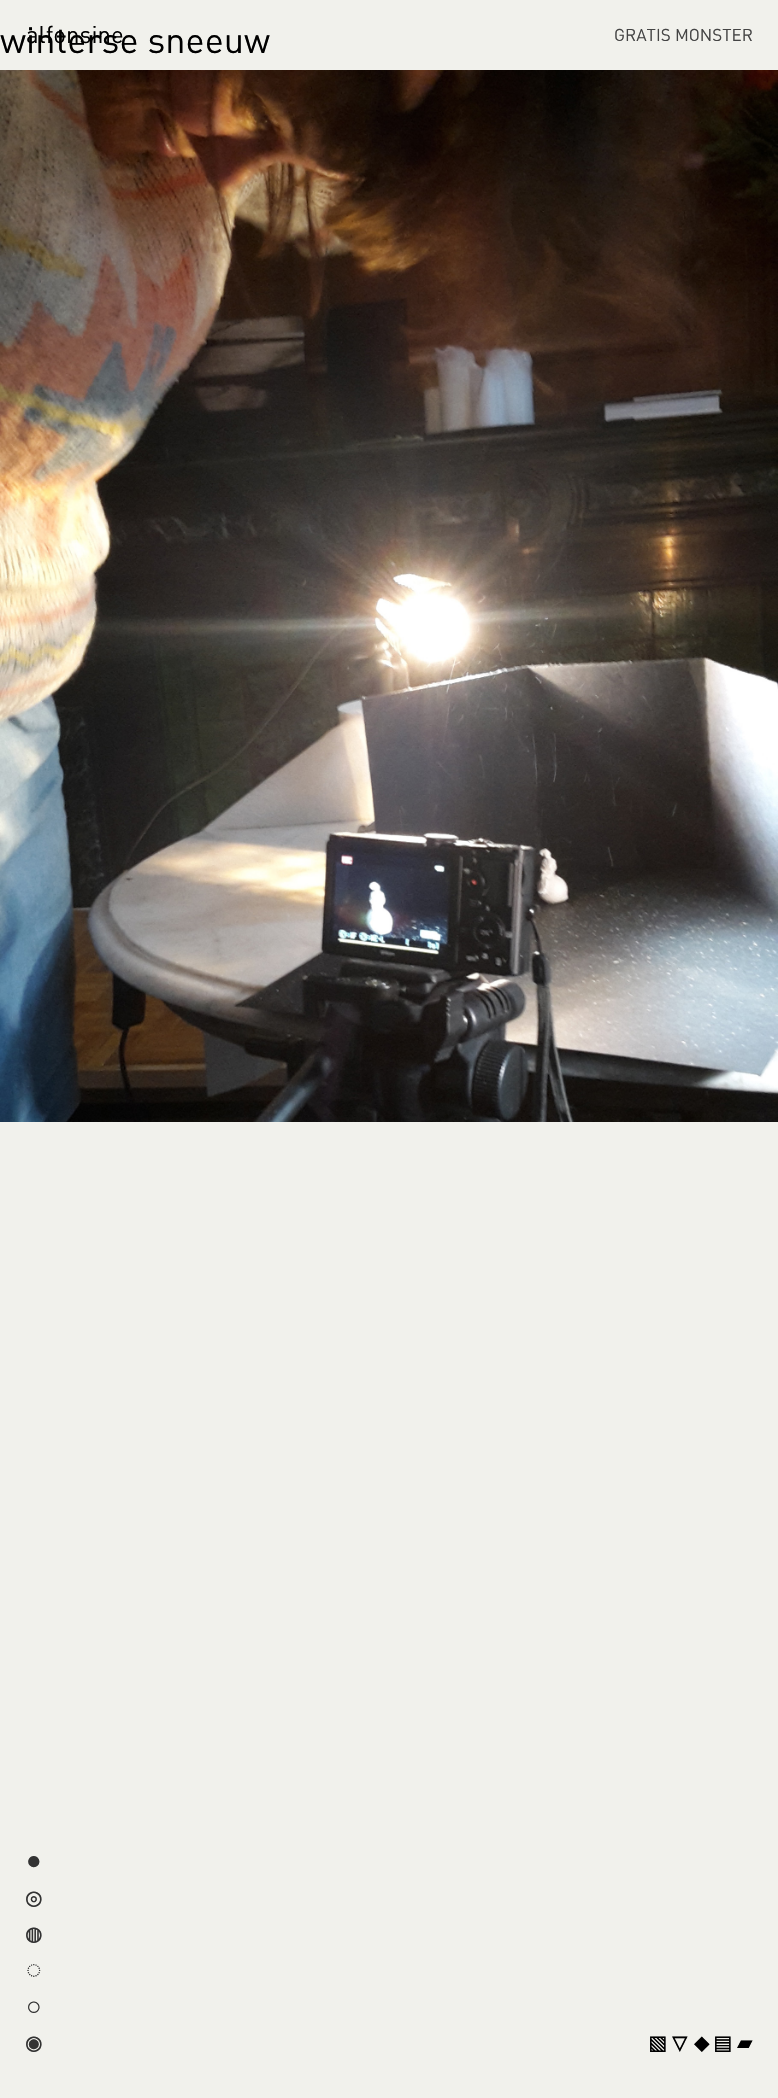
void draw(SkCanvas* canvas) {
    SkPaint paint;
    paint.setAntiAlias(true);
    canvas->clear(0xFFF1F1EC);
    SkFont font1(fontMgr->matchFamilyStyle("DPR", SkFontStyle::Normal()), 36);
    font1.setSubpixel(true);
    paint.setColor(0xFF000000);
    canvas->drawString("winterse sneeuw", 0, 53, font1, paint);
    SkFont font2(fontMgr->matchFamilyStyle("DPR", SkFontStyle::Normal()), 24);
    font2.setSubpixel(true);
    canvas->drawString("alfonsine", 26, 43, font2, paint);
    SkFont font3(fontMgr->matchFamilyStyle("DPR", SkFontStyle::Normal()), 17);
    font3.setSubpixel(true);
    paint.setColor(0xFF444444);
    canvas->drawString("GRATIS MONSTER", 614, 41, font3, paint);
    canvas->drawImageRect(SkImages::DeferredFromEncodedData(SkData::MakeFromFileName("img1.png")), SkRect::MakeXYWH(0, 70, 778, 1052), SkSamplingOptions());
    SkFont font4(fontMgr->matchFamilyStyle("Liberation Mono", SkFontStyle::Normal()), 26);
    font4.setSubpixel(true);
    paint.setColor(0xFF333333);
    canvas->drawString("●", 26, 1869, font4, paint);
    SkFont font5(fontMgr->matchFamilyStyle("DejaVu Sans Mono", SkFontStyle::Normal()), 26);
    font5.setSubpixel(true);
    canvas->drawString("◎", 26, 1906, font5, paint);
    canvas->drawString("◍", 26, 1942, font5, paint);
    canvas->drawString("◌", 26, 1978, font4, paint);
    canvas->drawString("○", 26, 2015, font4, paint);
    canvas->drawString("◉", 26, 2051, font5, paint);
    paint.setColor(0xFF000000);
    canvas->drawString("▧", 650, 2051, font5, paint);
    canvas->drawString("▽", 672, 2051, font5, paint);
    canvas->drawString("◆", 694, 2051, font5, paint);
    canvas->drawString("▤", 715, 2051, font5, paint);
    canvas->drawString("▰", 737, 2051, font5, paint);
}
